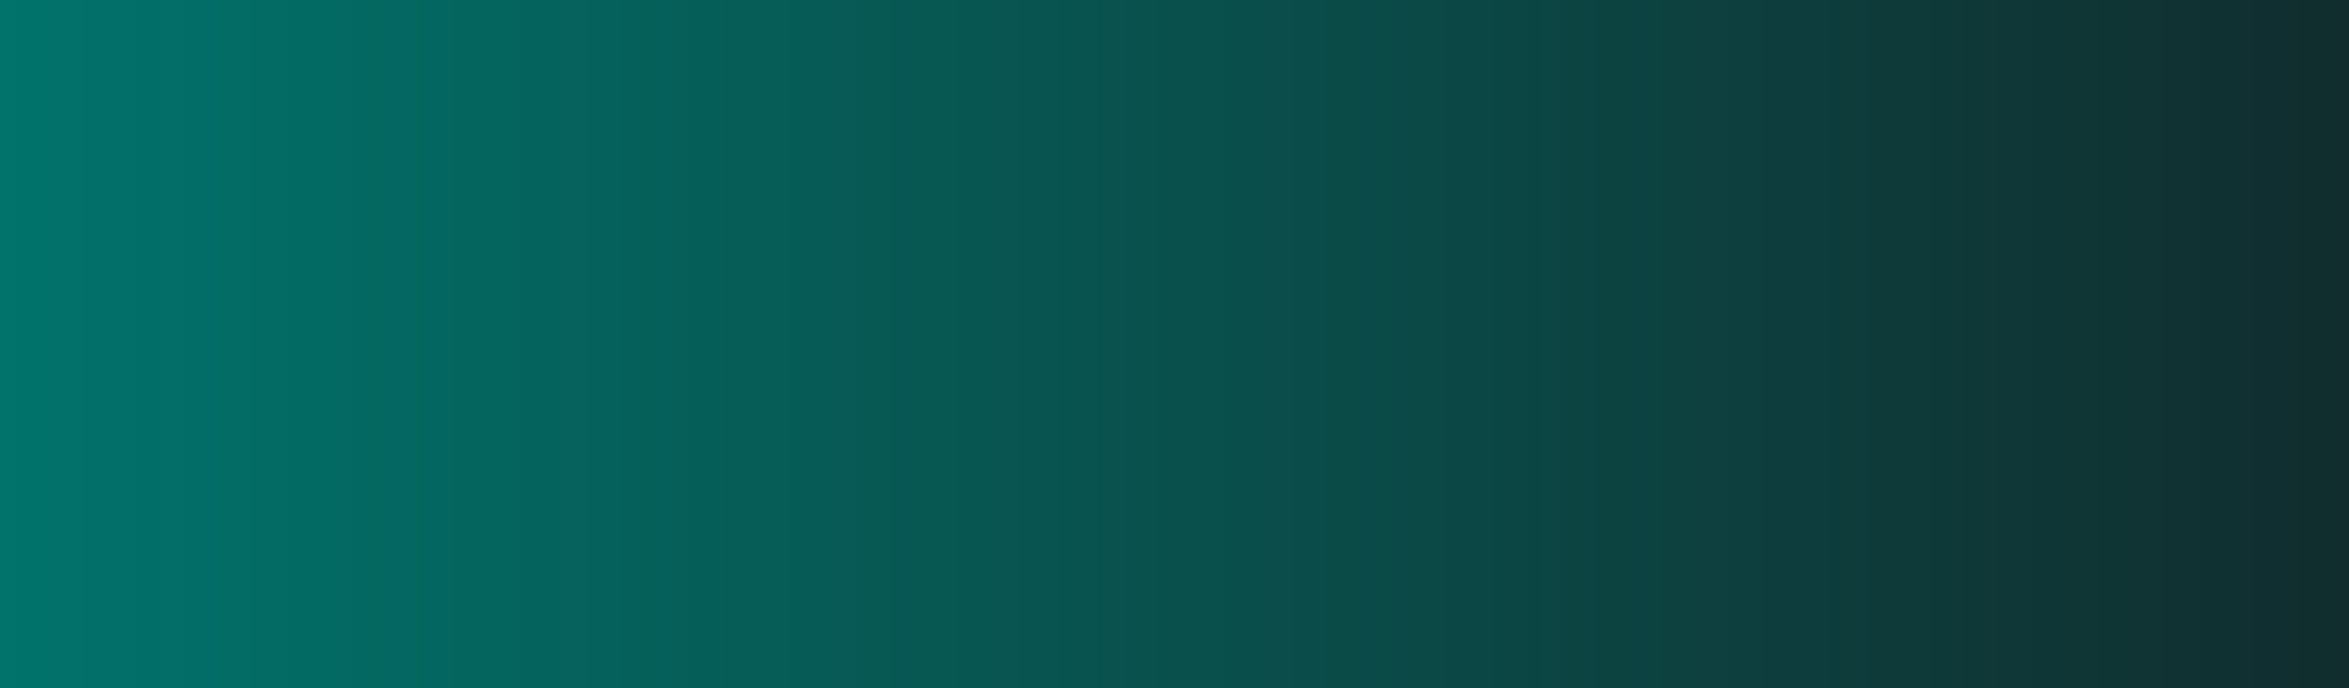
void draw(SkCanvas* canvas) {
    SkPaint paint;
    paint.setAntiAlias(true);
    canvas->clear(0xFFFFFFFF);
    {
        const SkColor colors[] = {0xFF01736B, 0xFF112D2E};
        const float stops[] = {0, 1};
        const SkPoint ends[] = {{0, 344}, {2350, 344}};
        paint.setShader(SkGradientShader::MakeLinear(ends, colors, stops, 2, SkTileMode::kClamp));
        paint.setAlpha(255);
    }
    canvas->drawRect(SkRect::MakeXYWH(0, 0, 2349, 688), paint);
}
